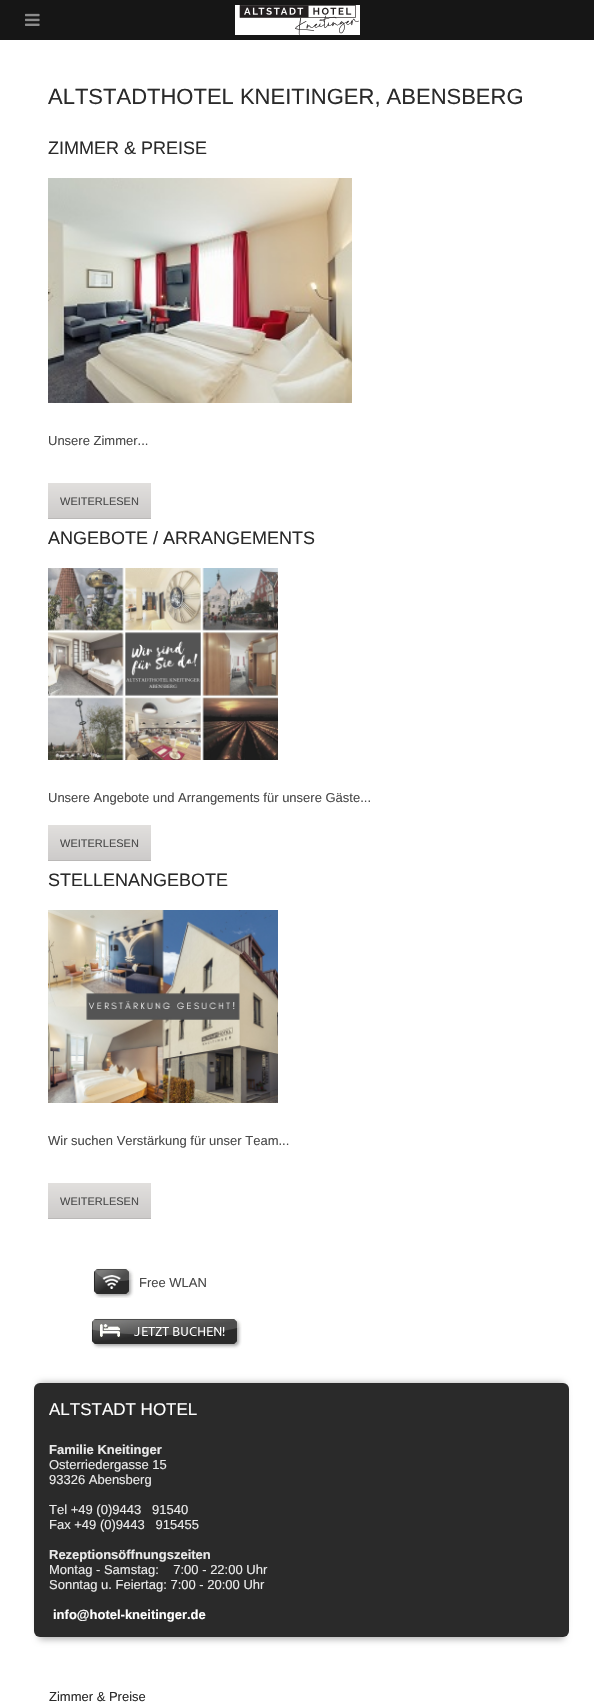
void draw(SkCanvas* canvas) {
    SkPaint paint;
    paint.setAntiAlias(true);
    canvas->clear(0xFF161616);
    canvas->drawImageRect(SkImages::DeferredFromEncodedData(SkData::MakeFromFileName("img1.png")), SkRect::MakeXYWH(25, 13, 15, 13), SkSamplingOptions());
    canvas->drawImageRect(SkImages::DeferredFromEncodedData(SkData::MakeFromFileName("img2.png")), SkRect::MakeXYWH(235, 5, 125, 30), SkSamplingOptions());
    paint.setColor(0xFFFFFFFF);
    canvas->drawRect(SkRect::MakeXYWH(0, 40, 594, 1667), paint);
    SkFont font1(fontMgr->matchFamilyStyle("Liberation Sans", SkFontStyle::Normal()), 22);
    font1.setSubpixel(true);
    paint.setColor(0xFF2A2A2A);
    canvas->drawString("ALTSTADTHOTEL KNEITINGER, ABENSBERG", 48, 104, font1, paint);
    SkFont font2(fontMgr->matchFamilyStyle("Liberation Sans", SkFontStyle::Normal()), 18);
    font2.setSubpixel(true);
    canvas->drawString("ZIMMER & PREISE", 48, 154, font2, paint);
    canvas->drawImageRect(SkImages::DeferredFromEncodedData(SkData::MakeFromFileName("img3.png")), SkRect::MakeXYWH(48, 178, 304, 225), SkSamplingOptions());
    SkFont font3(fontMgr->matchFamilyStyle("Liberation Sans", SkFontStyle::Normal()), 13);
    font3.setSubpixel(true);
    paint.setColor(0xFF494949);
    canvas->drawString("Unsere Zimmer...", 48, 445, font3, paint);
    {
        const SkColor colors[] = {0xFFE1DFDD, 0xFFCCCAC9};
        const float stops[] = {0, 1};
        const SkPoint ends[] = {{100, 483}, {100, 519}};
        paint.setShader(SkGradientShader::MakeLinear(ends, colors, stops, 2, SkTileMode::kClamp));
        paint.setAlpha(255);
    }
    canvas->drawRect(SkRect::MakeXYWH(48, 483, 103, 35), paint);
    paint.setShader(nullptr);
    paint.setColor(0xFFBAB8B7);
    canvas->drawRect(SkRect::MakeXYWH(48, 518, 103, 1), paint);
    SkFont font4(fontMgr->matchFamilyStyle("Liberation Sans", SkFontStyle::Normal()), 11);
    font4.setSubpixel(true);
    paint.setColor(0xFF494949);
    canvas->drawString("WEITERLESEN", 60, 505, font4, paint);
    paint.setColor(0xFF2A2A2A);
    canvas->drawString("ANGEBOTE / ARRANGEMENTS", 48, 544, font2, paint);
    canvas->drawImageRect(SkImages::DeferredFromEncodedData(SkData::MakeFromFileName("img4.png")), SkRect::MakeXYWH(48, 568, 230, 192), SkSamplingOptions());
    paint.setColor(0xFF494949);
    canvas->drawString("Unsere Angebote und Arrangements für unsere Gäste...", 48, 802, font3, paint);
    {
        const SkColor colors[] = {0xFFE1DFDD, 0xFFCCCAC9};
        const float stops[] = {0, 1};
        const SkPoint ends[] = {{100, 825}, {100, 861}};
        paint.setShader(SkGradientShader::MakeLinear(ends, colors, stops, 2, SkTileMode::kClamp));
        paint.setAlpha(255);
    }
    canvas->drawRect(SkRect::MakeXYWH(48, 825, 103, 35), paint);
    paint.setShader(nullptr);
    paint.setColor(0xFFBAB8B7);
    canvas->drawRect(SkRect::MakeXYWH(48, 860, 103, 1), paint);
    paint.setColor(0xFF494949);
    canvas->drawString("WEITERLESEN", 60, 847, font4, paint);
    paint.setColor(0xFF2A2A2A);
    canvas->drawString("STELLENANGEBOTE", 48, 886, font2, paint);
    canvas->drawImageRect(SkImages::DeferredFromEncodedData(SkData::MakeFromFileName("img5.png")), SkRect::MakeXYWH(48, 910, 230, 193), SkSamplingOptions());
    paint.setColor(0xFF494949);
    canvas->drawString("Wir suchen Verstärkung für unser Team...", 48, 1145, font3, paint);
    {
        const SkColor colors[] = {0xFFE1DFDD, 0xFFCCCAC9};
        const float stops[] = {0, 1};
        const SkPoint ends[] = {{100, 1183}, {100, 1219}};
        paint.setShader(SkGradientShader::MakeLinear(ends, colors, stops, 2, SkTileMode::kClamp));
        paint.setAlpha(255);
    }
    canvas->drawRect(SkRect::MakeXYWH(48, 1183, 103, 35), paint);
    paint.setShader(nullptr);
    paint.setColor(0xFFBAB8B7);
    canvas->drawRect(SkRect::MakeXYWH(48, 1218, 103, 1), paint);
    paint.setColor(0xFF494949);
    canvas->drawString("WEITERLESEN", 60, 1205, font4, paint);
    canvas->drawImageRect(SkImages::DeferredFromEncodedData(SkData::MakeFromFileName("img6.png")), SkRect::MakeXYWH(93, 1268, 41, 30), SkSamplingOptions());
    canvas->drawString("Free WLAN", 139, 1287, font3, paint);
    canvas->drawImageRect(SkImages::DeferredFromEncodedData(SkData::MakeFromFileName("img7.png")), SkRect::MakeXYWH(91, 1318, 151, 31), SkSamplingOptions());
    paint.setColor(0xFFABABAB);
    paint.setMaskFilter(SkMaskFilter::MakeBlur(kNormal_SkBlurStyle, 3.5f));
    canvas->drawRoundRect(SkRect::MakeXYWH(39, 1383, 525, 244), 1, 1, paint);
    paint.setMaskFilter(nullptr);
    paint.setMaskFilter(SkMaskFilter::MakeBlur(kNormal_SkBlurStyle, 3.5f));
    canvas->drawRoundRect(SkRect::MakeXYWH(39, 1395, 525, 244), 1, 1, paint);
    paint.setMaskFilter(nullptr);
    paint.setColor(0xFF2A2A2A);
    canvas->drawRoundRect(SkRect::MakeXYWH(34, 1383, 535, 254), 6, 6, paint);
    SkFont font5(fontMgr->matchFamilyStyle("Liberation Sans", SkFontStyle::Normal()), 17);
    font5.setSubpixel(true);
    paint.setColor(0xFFFFFFFF);
    canvas->drawString("ALTSTADT HOTEL", 49, 1415, font5, paint);
    SkFont font6(fontMgr->matchFamilyStyle("Liberation Sans", SkFontStyle::Bold()), 13);
    font6.setSubpixel(true);
    paint.setColor(0xFFEAEAEA);
    canvas->drawString("Familie Kneitinger", 49, 1454, font6, paint);
    canvas->drawString("Osterriedergasse 15", 49, 1469, font3, paint);
    canvas->drawString("93326 Abensberg", 49, 1484, font3, paint);
    canvas->drawString("Tel +49 (0)9443   91540", 49, 1514, font3, paint);
    canvas->drawString("Fax +49 (0)9443   915455", 49, 1529, font3, paint);
    canvas->drawString("Rezeptionsöffnungszeiten", 49, 1559, font6, paint);
    canvas->drawString("Montag - Samstag:    7:00 - 22:00 Uhr", 49, 1574, font3, paint);
    canvas->drawString("Sonntag u. Feiertag: 7:00 - 20:00 Uhr", 49, 1589, font3, paint);
    paint.setColor(0xFFFFFFFF);
    canvas->drawString("info@hotel-kneitinger.de", 53, 1619, font6, paint);
    paint.setColor(0xFF2A2A2A);
    canvas->drawString("Zimmer & Preise", 49, 1701, font3, paint);
}
